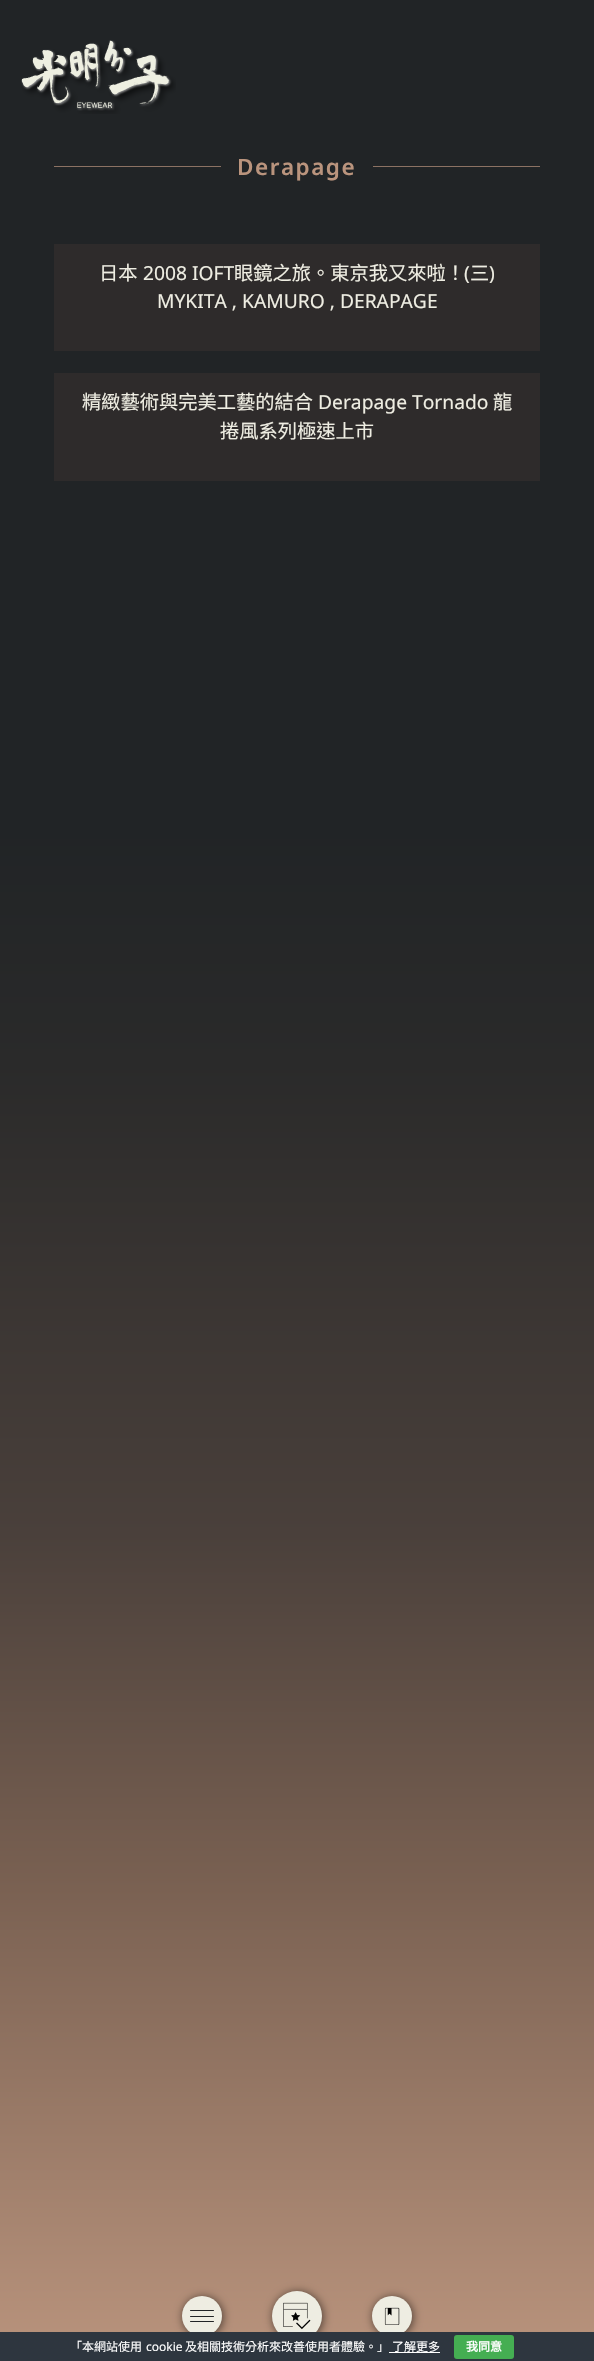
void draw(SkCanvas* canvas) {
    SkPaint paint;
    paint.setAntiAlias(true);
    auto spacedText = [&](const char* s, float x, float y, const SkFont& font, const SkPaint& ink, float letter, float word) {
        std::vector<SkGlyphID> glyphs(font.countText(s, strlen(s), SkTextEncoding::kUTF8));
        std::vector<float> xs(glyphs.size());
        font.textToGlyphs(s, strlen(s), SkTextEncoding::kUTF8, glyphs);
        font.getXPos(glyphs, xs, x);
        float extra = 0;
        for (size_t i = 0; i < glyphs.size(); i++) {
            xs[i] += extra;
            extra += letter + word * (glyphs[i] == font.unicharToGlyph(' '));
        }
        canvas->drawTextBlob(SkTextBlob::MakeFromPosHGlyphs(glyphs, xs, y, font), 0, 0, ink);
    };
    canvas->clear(0xFFFFFFFF);
    {
        const SkColor colors[] = {0xFF212426, 0xFF212426, 0xFF2A2A2A, 0xFF4A403B, 0xFF7A6152, 0xFFBA947D};
        const float stops[] = {0, 0.35f, 0.45f, 0.65f, 0.8f, 1};
        const SkPoint ends[] = {{297, 0}, {297, 2361}};
        paint.setShader(SkGradientShader::MakeLinear(ends, colors, stops, 6, SkTileMode::kClamp));
        paint.setAlpha(255);
    }
    canvas->drawRect(SkRect::MakeXYWH(0, 0, 594, 2332), paint);
    canvas->drawImageRect(SkImages::DeferredFromEncodedData(SkData::MakeFromFileName("img1.png")), SkRect::MakeXYWH(21, 40, 155, 74), SkSamplingOptions());
    paint.setShader(nullptr);
    paint.setColor(0xFF8C7263);
    canvas->drawRect(SkRect::MakeXYWH(54, 166, 167, 1), paint);
    SkFont font1(fontMgr->matchFamilyStyle("Noto Sans", SkFontStyle(600, SkFontStyle::kNormal_Width, SkFontStyle::kUpright_Slant)), 22.5f);
    font1.setSubpixel(true);
    paint.setColor(0xFFBA947D);
    spacedText("Derapage", 237, 175, font1, paint, 1.5f, 0);
    paint.setColor(0xFF8C7263);
    canvas->drawRect(SkRect::MakeXYWH(373, 166, 167, 1), paint);
    paint.setColor(0xFF2E2B2B);
    canvas->drawRect(SkRect::MakeXYWH(54, 244, 486, 107), paint);
    SkFont font2(fontMgr->matchFamilyStyle("Noto Sans CJK TC", SkFontStyle::Normal()), 19.25f);
    font2.setSubpixel(true);
    paint.setColor(0xFFEEEDE2);
    canvas->drawString("日本", 99, 280, font2, paint);
    SkFont font3(fontMgr->matchFamilyStyle("Noto Sans", SkFontStyle::Normal()), 19.25f);
    font3.setSubpixel(true);
    canvas->drawString("2008 IOFT", 143, 280, font3, paint);
    canvas->drawString("眼鏡之旅。東京我又來啦！", 234, 280, font2, paint);
    canvas->drawString("(", 464, 280, font3, paint);
    canvas->drawString("三", 470, 280, font2, paint);
    canvas->drawString(")", 489, 280, font3, paint);
    canvas->drawString("MYKITA , KAMURO , DERAPAGE", 157, 308, font3, paint);
    paint.setColor(0xFF2E2B2B);
    canvas->drawRect(SkRect::MakeXYWH(54, 373, 486, 108), paint);
    paint.setColor(0xFFEEEDE2);
    canvas->drawString("精緻藝術與完美工藝的結合", 82, 409, font2, paint);
    canvas->drawString("Derapage Tornado", 318, 409, font3, paint);
    canvas->drawString("龍", 493, 409, font2, paint);
    canvas->drawString("捲風系列極速上市", 220, 438, font2, paint);
    paint.setColor(0x99000000);
    paint.setMaskFilter(SkMaskFilter::MakeBlur(kNormal_SkBlurStyle, 5));
    canvas->drawRoundRect(SkRect::MakeXYWH(183, 2297, 40, 40), 20, 20, paint);
    paint.setMaskFilter(nullptr);
    paint.setColor(0xFFEEEDE2);
    canvas->drawCircle(202, 2316, 20, paint);
    paint.setColor(0xFF212426);
    canvas->drawRoundRect(SkRect::MakeXYWH(190, 2310, 24, 1), 0.5f, 0.5f, paint);
    canvas->drawRoundRect(SkRect::MakeXYWH(190, 2316, 24, 1), 0.5f, 0.5f, paint);
    canvas->drawRoundRect(SkRect::MakeXYWH(190, 2321, 24, 1), 0.5f, 0.5f, paint);
    paint.setColor(0x99000000);
    paint.setMaskFilter(SkMaskFilter::MakeBlur(kNormal_SkBlurStyle, 5));
    canvas->drawRoundRect(SkRect::MakeXYWH(273, 2292, 50, 50), 25, 25, paint);
    paint.setMaskFilter(nullptr);
    paint.setColor(0xFFEEEDE2);
    canvas->drawCircle(297, 2316, 25, paint);
    canvas->drawImageRect(SkImages::DeferredFromEncodedData(SkData::MakeFromFileName("img2.png")), SkRect::MakeXYWH(283, 2302, 28, 28), SkSamplingOptions());
    paint.setColor(0x99000000);
    paint.setMaskFilter(SkMaskFilter::MakeBlur(kNormal_SkBlurStyle, 5));
    canvas->drawRoundRect(SkRect::MakeXYWH(373, 2297, 40, 40), 20, 20, paint);
    paint.setMaskFilter(nullptr);
    paint.setColor(0xFFEEEDE2);
    canvas->drawCircle(392, 2316, 20, paint);
    canvas->drawImageRect(SkImages::DeferredFromEncodedData(SkData::MakeFromFileName("img3.png")), SkRect::MakeXYWH(384, 2307, 16, 18), SkSamplingOptions());
    paint.setColor(0xFF2E363F);
    canvas->drawRect(SkRect::MakeXYWH(0, 2332, 594, 29), paint);
    SkFont font4(fontMgr->matchFamilyStyle("Noto Sans CJK TC", SkFontStyle::Normal()), 12);
    font4.setSubpixel(true);
    paint.setColor(0xFFFFFFFF);
    canvas->drawString("「本網站使用", 70, 2351, font4, paint);
    SkFont font5(fontMgr->matchFamilyStyle("Noto Sans", SkFontStyle::Normal()), 12);
    font5.setSubpixel(true);
    canvas->drawString("cookie", 146, 2351, font5, paint);
    canvas->drawString("及相關技術分析來改善使用者體驗。」", 185, 2351, font4, paint);
    canvas->drawString("了解更多", 392, 2351, font4, paint);
    canvas->drawRect(SkRect::MakeXYWH(389, 2352, 51, 1), paint);
    paint.setColor(0xFF45AE52);
    canvas->drawRoundRect(SkRect::MakeXYWH(454, 2335, 60, 24), 3, 3, paint);
    SkFont font6(fontMgr->matchFamilyStyle("Noto Sans CJK TC", SkFontStyle::Bold()), 12);
    font6.setSubpixel(true);
    paint.setColor(0xFFFFFFFF);
    canvas->drawString("我同意", 466, 2351, font6, paint);
}
